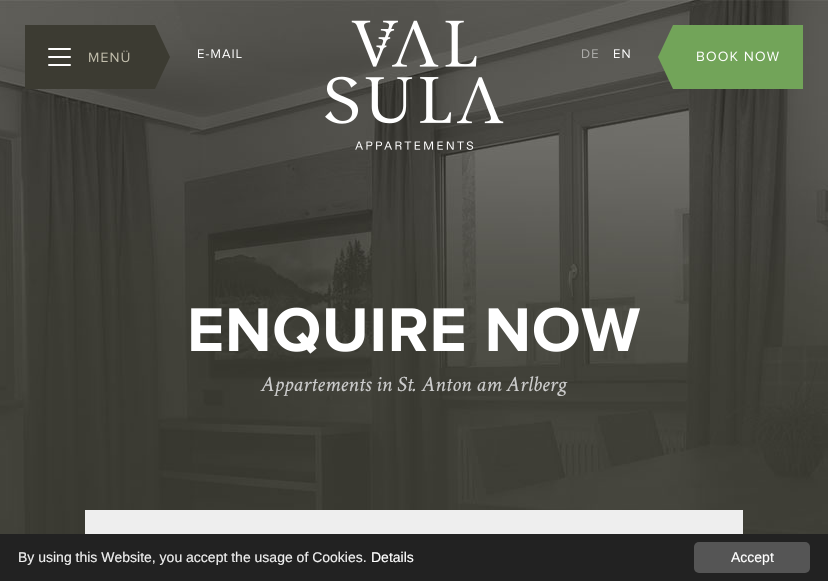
void draw(SkCanvas* canvas) {
    SkPaint paint;
    paint.setAntiAlias(true);
    canvas->clear(0xFFFFFFFF);
    canvas->drawImageRect(SkImages::DeferredFromEncodedData(SkData::MakeFromFileName("img7.png")), SkRect::MakeXYWH(0, 0, 828, 534), SkSamplingOptions());
    canvas->drawImageRect(SkImages::DeferredFromEncodedData(SkData::MakeFromFileName("img1.png")), SkRect::MakeXYWH(325, 20, 179, 130), SkSamplingOptions());
    paint.setColor(0xFF3C3B32);
    canvas->drawRect(SkRect::MakeXYWH(25, 25, 130, 64), paint);
    paint.setColor(0xFFFFFFFF);
    canvas->drawRoundRect(SkRect::MakeXYWH(48, 48, 23, 2), 1, 1, paint);
    canvas->drawRoundRect(SkRect::MakeXYWH(48, 56, 23, 2), 1, 1, paint);
    canvas->drawRoundRect(SkRect::MakeXYWH(48, 64, 23, 2), 1, 1, paint);
    canvas->drawImageRect(SkImages::DeferredFromEncodedData(SkData::MakeFromFileName("img2.png")), SkRect::MakeXYWH(89, 50, 41, 13), SkSamplingOptions());
    paint.setColor(0xFF3C3B32);
    canvas->drawPath(SkPathBuilder().moveTo(155, 89).lineTo(155, 25).lineTo(170, 57).close().detach(), paint);
    paint.setColor(0xFF72A459);
    canvas->drawRect(SkRect::MakeXYWH(673, 25, 130, 64), paint);
    canvas->drawPath(SkPathBuilder().moveTo(673, 25).lineTo(673, 89).lineTo(658, 57).close().detach(), paint);
    canvas->drawImageRect(SkImages::DeferredFromEncodedData(SkData::MakeFromFileName("img3.png")), SkRect::MakeXYWH(697, 51, 82, 11), SkSamplingOptions());
    canvas->drawImageRect(SkImages::DeferredFromEncodedData(SkData::MakeFromFileName("img4.png")), SkRect::MakeXYWH(198, 49, 44, 9), SkSamplingOptions());
    canvas->drawImageRect(SkImages::DeferredFromEncodedData(SkData::MakeFromFileName("img5.png")), SkRect::MakeXYWH(582, 49, 16, 9), SkSamplingOptions());
    canvas->drawImageRect(SkImages::DeferredFromEncodedData(SkData::MakeFromFileName("img6.png")), SkRect::MakeXYWH(614, 49, 16, 9), SkSamplingOptions());
    canvas->drawImageRect(SkImages::DeferredFromEncodedData(SkData::MakeFromFileName("img8.png")), SkRect::MakeXYWH(191, 307, 449, 47), SkSamplingOptions());
    SkFont font1(fontMgr->matchFamilyStyle("Crimson Text", SkFontStyle::Italic()), 22);
    font1.setSubpixel(true);
    paint.setColor(0xFFCCCCCC);
    canvas->drawString("Appartements in St. Anton am Arlberg", 261, 391, font1, paint);
    paint.setColor(0xFFEEEEEE);
    canvas->drawRect(SkRect::MakeXYWH(85, 510, 658, 24), paint);
    paint.setColor(0xFF222222);
    canvas->drawRect(SkRect::MakeXYWH(0, 534, 828, 47), paint);
    SkFont font2(fontMgr->matchFamilyStyle("Liberation Sans", SkFontStyle::Normal()), 14);
    font2.setSubpixel(true);
    paint.setColor(0xFFEEEEEE);
    canvas->drawString("By using this Website, you accept the usage of Cookies.", 18, 562, font2, paint);
    paint.setColor(0xFFFFFFFF);
    canvas->drawString("Details", 371, 562, font2, paint);
    paint.setColor(0xFF555555);
    canvas->drawRoundRect(SkRect::MakeXYWH(694, 542, 116, 31), 5, 5, paint);
    paint.setColor(0xFFFFFFFF);
    canvas->drawString("Accept", 731, 562, font2, paint);
}
